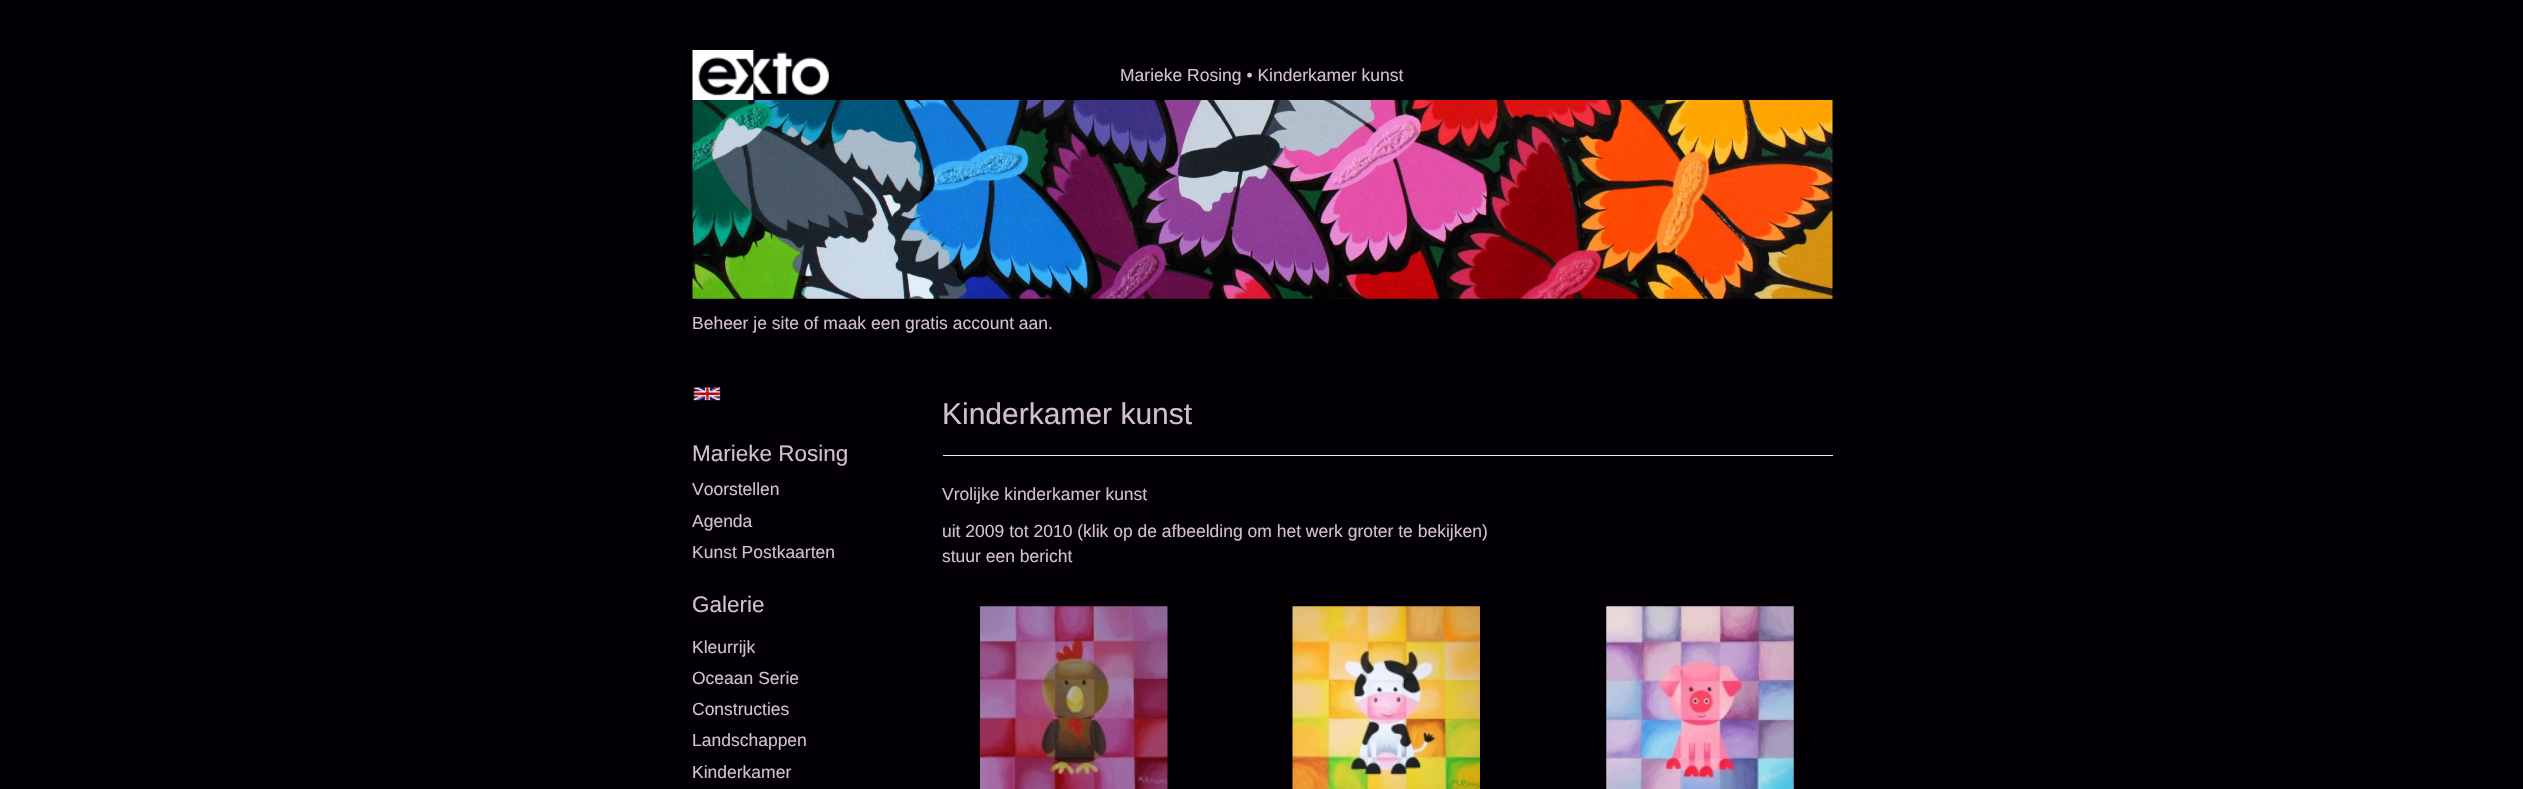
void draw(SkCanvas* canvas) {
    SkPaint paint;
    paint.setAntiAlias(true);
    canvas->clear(0xFF020004);
    canvas->drawImageRect(SkImages::DeferredFromEncodedData(SkData::MakeFromFileName("img1.png")), SkRect::MakeXYWH(692, 50, 137, 50), SkSamplingOptions());
    SkFont font1(fontMgr->matchFamilyStyle("Liberation Sans", SkFontStyle::Normal()), 17.5f);
    font1.setSubpixel(true);
    paint.setColor(0xFFD2BFCF);
    canvas->drawString("Marieke Rosing • Kinderkamer kunst", 1120, 81, font1, paint);
    canvas->drawImageRect(SkImages::DeferredFromEncodedData(SkData::MakeFromFileName("img2.png")), SkRect::MakeXYWH(692, 100, 1141, 199), SkSamplingOptions());
    canvas->drawString("Beheer je site of maak een gratis account aan.", 692, 329, font1, paint);
    canvas->drawImageRect(SkImages::DeferredFromEncodedData(SkData::MakeFromFileName("img3.png")), SkRect::MakeXYWH(693, 387, 28, 14), SkSamplingOptions());
    SkFont font2(fontMgr->matchFamilyStyle("Liberation Sans", SkFontStyle::Normal()), 22.5f);
    font2.setSubpixel(true);
    canvas->drawString("Marieke Rosing", 692, 461, font2, paint);
    canvas->drawString("Voorstellen", 692, 495, font1, paint);
    canvas->drawString("Agenda", 692, 527, font1, paint);
    canvas->drawString("Kunst Postkaarten", 692, 558, font1, paint);
    canvas->drawString("Galerie", 692, 612, font2, paint);
    canvas->drawString("Kleurrijk", 692, 653, font1, paint);
    canvas->drawString("Oceaan Serie", 692, 684, font1, paint);
    canvas->drawString("Constructies", 692, 715, font1, paint);
    canvas->drawString("Landschappen", 692, 746, font1, paint);
    canvas->drawString("Kinderkamer", 692, 778, font1, paint);
    paint.setColor(0xFFEEEEEE);
    canvas->drawRect(SkRect::MakeXYWH(943, 455, 890, 1), paint);
    SkFont font3(fontMgr->matchFamilyStyle("Liberation Sans", SkFontStyle::Normal()), 30);
    font3.setSubpixel(true);
    paint.setColor(0xFFD2BFCF);
    canvas->drawString("Kinderkamer kunst", 942, 424, font3, paint);
    canvas->drawString("Vrolijke kinderkamer kunst", 942, 500, font1, paint);
    canvas->drawString("uit 2009 tot 2010 (klik op de afbeelding om het werk groter te bekijken)", 942, 537, font1, paint);
    canvas->drawString("stuur een bericht", 942, 562, font1, paint);
    canvas->drawImageRect(SkImages::DeferredFromEncodedData(SkData::MakeFromFileName("img4.png")), SkRect::MakeXYWH(980, 606, 188, 183), SkSamplingOptions());
    canvas->drawImageRect(SkImages::DeferredFromEncodedData(SkData::MakeFromFileName("img5.png")), SkRect::MakeXYWH(1292, 606, 188, 183), SkSamplingOptions());
    canvas->drawImageRect(SkImages::DeferredFromEncodedData(SkData::MakeFromFileName("img6.png")), SkRect::MakeXYWH(1606, 606, 188, 183), SkSamplingOptions());
}
